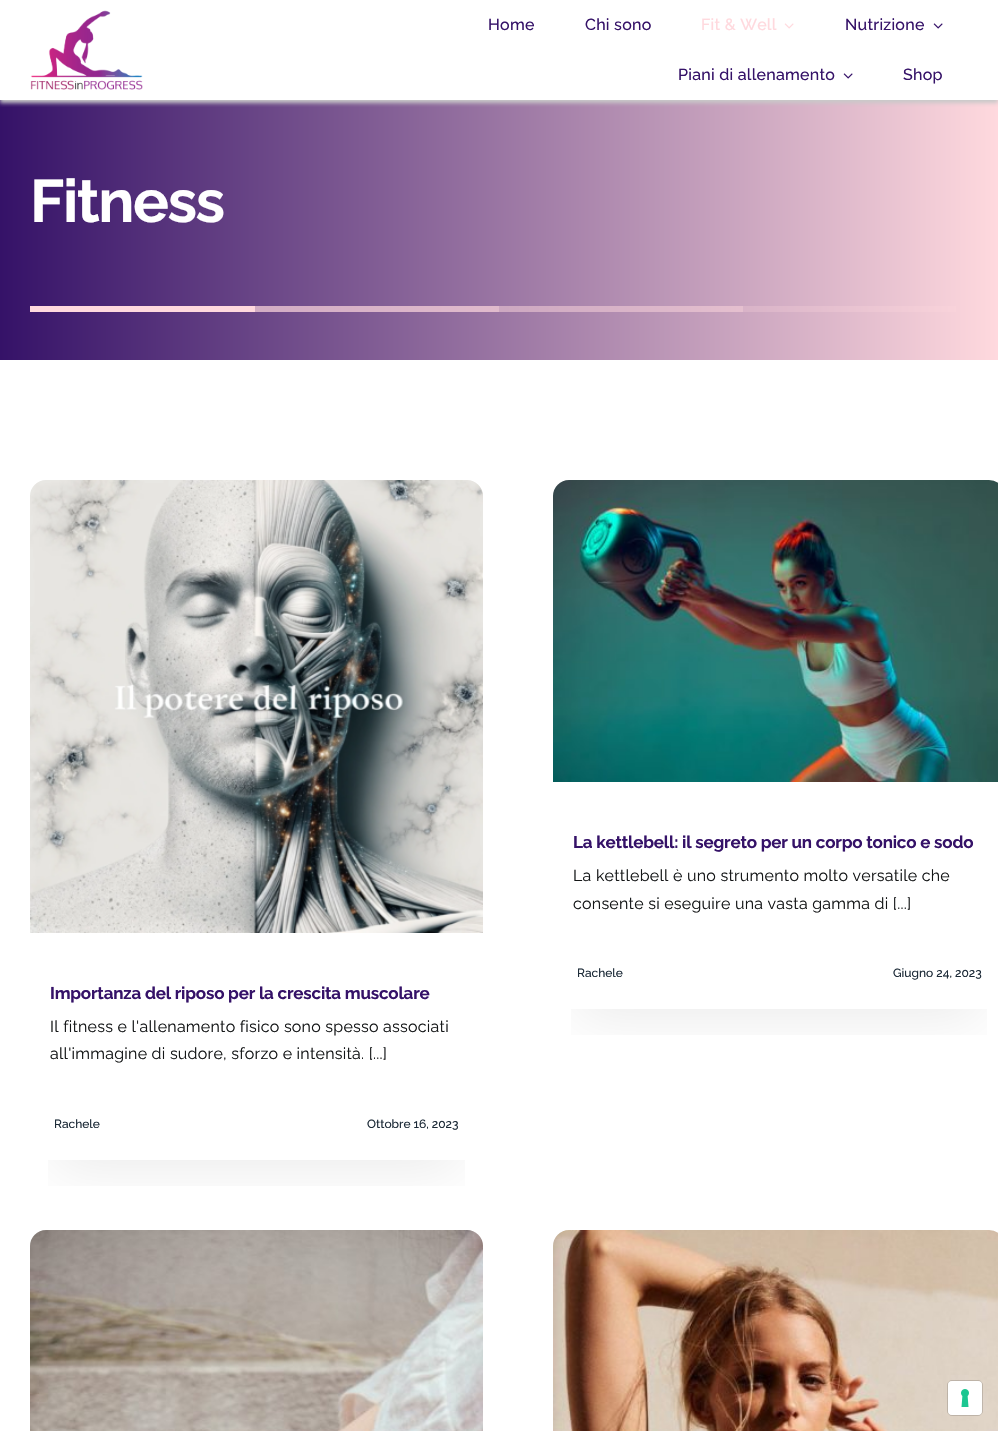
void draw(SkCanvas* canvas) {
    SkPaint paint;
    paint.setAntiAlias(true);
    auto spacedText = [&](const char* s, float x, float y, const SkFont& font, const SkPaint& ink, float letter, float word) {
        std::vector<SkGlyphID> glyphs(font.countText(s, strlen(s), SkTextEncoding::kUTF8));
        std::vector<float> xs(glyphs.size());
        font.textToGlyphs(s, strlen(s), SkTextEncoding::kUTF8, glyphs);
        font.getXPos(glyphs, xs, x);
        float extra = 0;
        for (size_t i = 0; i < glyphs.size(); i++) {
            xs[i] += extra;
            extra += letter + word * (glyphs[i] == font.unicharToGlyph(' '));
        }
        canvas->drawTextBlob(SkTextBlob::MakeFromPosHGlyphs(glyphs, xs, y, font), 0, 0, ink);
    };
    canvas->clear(0xFFFFFFFF);
    {
        const SkColor colors[] = {0xFF351268, 0xFFFFD9DE};
        const float stops[] = {0, 1};
        const SkPoint ends[] = {{0, 230}, {998, 230}};
        paint.setShader(SkGradientShader::MakeLinear(ends, colors, stops, 2, SkTileMode::kClamp));
        paint.setAlpha(255);
    }
    canvas->drawRect(SkRect::MakeXYWH(0, 100, 998, 260), paint);
    canvas->save();
    canvas->clipRect(SkRect::MakeXYWH(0, 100, 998, 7));
    paint.setShader(nullptr);
    paint.setColor(0xFFC9C9C9);
    paint.setMaskFilter(SkMaskFilter::MakeBlur(kNormal_SkBlurStyle, 2));
    canvas->drawRect(SkRect::MakeXYWH(0, 3, 998, 100), paint);
    paint.setMaskFilter(nullptr);
    canvas->restore();
    canvas->drawImageRect(SkImages::DeferredFromEncodedData(SkData::MakeFromFileName("img1.png")), SkRect::MakeXYWH(30, 10, 113, 80), SkSamplingOptions());
    SkFont font1(fontMgr->matchFamilyStyle("Raleway", SkFontStyle(500, SkFontStyle::kNormal_Width, SkFontStyle::kUpright_Slant)), 16);
    font1.setSubpixel(true);
    paint.setColor(0xFF351268);
    spacedText("Home", 488, 30, font1, paint, 0.25f, 0);
    spacedText("Chi sono", 585, 30, font1, paint, 0.25f, 0);
    paint.setColor(0xFFFFD9DE);
    spacedText("Fit & Well", 701, 30, font1, paint, 0.25f, 0);
    canvas->drawImageRect(SkImages::DeferredFromEncodedData(SkData::MakeFromFileName("img2.png")), SkRect::MakeXYWH(784, 23, 10, 6), SkSamplingOptions());
    paint.setColor(0xFF351268);
    spacedText("Nutrizione", 845, 30, font1, paint, 0.25f, 0);
    canvas->drawImageRect(SkImages::DeferredFromEncodedData(SkData::MakeFromFileName("img3.png")), SkRect::MakeXYWH(933, 23, 10, 6), SkSamplingOptions());
    spacedText("Piani di allenamento", 678, 80, font1, paint, 0.25f, 0);
    canvas->drawImageRect(SkImages::DeferredFromEncodedData(SkData::MakeFromFileName("img3.png")), SkRect::MakeXYWH(843, 73, 10, 6), SkSamplingOptions());
    spacedText("Shop", 903, 80, font1, paint, 0.25f, 0);
    {
        const SkColor colors[] = {0xFF684486, 0xFFFFD9DE};
        const float stops[] = {0, 1};
        const SkPoint ends[] = {{0, 230}, {998, 230}};
        paint.setShader(SkGradientShader::MakeLinear(ends, colors, stops, 2, SkTileMode::kClamp));
        paint.setAlpha(255);
    }
    canvas->drawRect(SkRect::MakeXYWH(743, 306, 213, 6), paint);
    {
        const SkColor colors[] = {0xFF9A76A3, 0xFFFFD9DE};
        const float stops[] = {0, 1};
        const SkPoint ends[] = {{0, 230}, {998, 230}};
        paint.setShader(SkGradientShader::MakeLinear(ends, colors, stops, 2, SkTileMode::kClamp));
        paint.setAlpha(255);
    }
    canvas->drawRect(SkRect::MakeXYWH(499, 306, 244, 6), paint);
    {
        const SkColor colors[] = {0xFFC29DBB, 0xFFFFD9DE};
        const float stops[] = {0, 1};
        const SkPoint ends[] = {{0, 230}, {998, 230}};
        paint.setShader(SkGradientShader::MakeLinear(ends, colors, stops, 2, SkTileMode::kClamp));
        paint.setAlpha(255);
    }
    canvas->drawRect(SkRect::MakeXYWH(255, 306, 244, 6), paint);
    SkFont font2(fontMgr->matchFamilyStyle("Raleway", SkFontStyle::Bold()), 60);
    font2.setSubpixel(true);
    paint.setShader(nullptr);
    paint.setColor(0xFFFFFFFF);
    spacedText("Fitness", 30, 222, font2, paint, -1.5f, 0);
    paint.setColor(0xFFFFD9DE);
    canvas->drawRect(SkRect::MakeXYWH(30, 306, 225, 6), paint);
    canvas->save();
    canvas->clipRect(SkRect::MakeXYWH(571, 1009, 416, 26));
    paint.setColor(0x14000000);
    paint.setMaskFilter(SkMaskFilter::MakeBlur(kNormal_SkBlurStyle, 26));
    canvas->drawRect(SkRect::MakeXYWH(577, 536, 404, 481), paint);
    paint.setMaskFilter(nullptr);
    canvas->restore();
    canvas->drawImageRect(SkImages::DeferredFromEncodedData(SkData::MakeFromFileName("img4.png")), SkRect::MakeXYWH(553, 480, 445, 302), SkSamplingOptions());
    SkFont font3(fontMgr->matchFamilyStyle("Raleway", SkFontStyle::Bold()), 17);
    font3.setSubpixel(true);
    paint.setColor(0xFF351268);
    spacedText("La kettlebell: il segreto per un corpo tonico e sodo", 573, 848, font3, paint, -0.2f, 0);
    SkFont font4(fontMgr->matchFamilyStyle("Raleway", SkFontStyle::Normal()), 16);
    font4.setSubpixel(true);
    paint.setColor(0xFF141617);
    spacedText("La kettlebell è uno strumento molto versatile che", 573, 881, font4, paint, 0.25f, 0);
    spacedText("consente si eseguire una vasta gamma di [...]", 573, 909, font4, paint, 0.25f, 0);
    SkFont font5(fontMgr->matchFamilyStyle("Raleway", SkFontStyle(500, SkFontStyle::kNormal_Width, SkFontStyle::kUpright_Slant)), 12);
    font5.setSubpixel(true);
    paint.setColor(0xFF1C2A37);
    canvas->drawString("Rachele", 577, 977, font5, paint);
    canvas->drawString("Giugno 24, 2023", 893, 977, font5, paint);
    canvas->save();
    canvas->clipRect(SkRect::MakeXYWH(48, 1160, 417, 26));
    paint.setColor(0x14000000);
    paint.setMaskFilter(SkMaskFilter::MakeBlur(kNormal_SkBlurStyle, 26));
    canvas->drawRect(SkRect::MakeXYWH(54, 536, 405, 632), paint);
    paint.setMaskFilter(nullptr);
    canvas->restore();
    canvas->drawImageRect(SkImages::DeferredFromEncodedData(SkData::MakeFromFileName("img5.png")), SkRect::MakeXYWH(30, 480, 453, 453), SkSamplingOptions());
    paint.setColor(0xFF351268);
    spacedText("Importanza del riposo per la crescita muscolare", 50, 999, font3, paint, -0.2f, 0);
    paint.setColor(0xFF141617);
    spacedText("Il fitness e l'allenamento fisico sono spesso associati", 50, 1032, font4, paint, 0.25f, 0);
    spacedText("all'immagine di sudore, sforzo e intensità. [...]", 50, 1059, font4, paint, 0.25f, 0);
    paint.setColor(0xFF1C2A37);
    canvas->drawString("Rachele", 54, 1128, font5, paint);
    canvas->drawString("Ottobre 16, 2023", 367, 1128, font5, paint);
    canvas->drawImageRect(SkImages::DeferredFromEncodedData(SkData::MakeFromFileName("img6.png")), SkRect::MakeXYWH(30, 1230, 453, 201), SkSamplingOptions());
    canvas->drawImageRect(SkImages::DeferredFromEncodedData(SkData::MakeFromFileName("img7.png")), SkRect::MakeXYWH(553, 1230, 445, 201), SkSamplingOptions());
    paint.setStyle(SkPaint::kStroke_Style);
    paint.setStrokeWidth(1);
    paint.setColor(0x26000000);
    canvas->drawRoundRect(SkRect::MakeXYWH(947.5f, 1380.5f, 35, 35), 4.5f, 4.5f, paint);
    paint.setStyle(SkPaint::kFill_Style);
    paint.setColor(0xFFFFFFFF);
    canvas->drawRoundRect(SkRect::MakeXYWH(948, 1381, 34, 34), 4, 4, paint);
    canvas->drawImageRect(SkImages::DeferredFromEncodedData(SkData::MakeFromFileName("img8.png")), SkRect::MakeXYWH(961, 1389, 8, 18), SkSamplingOptions());
}
